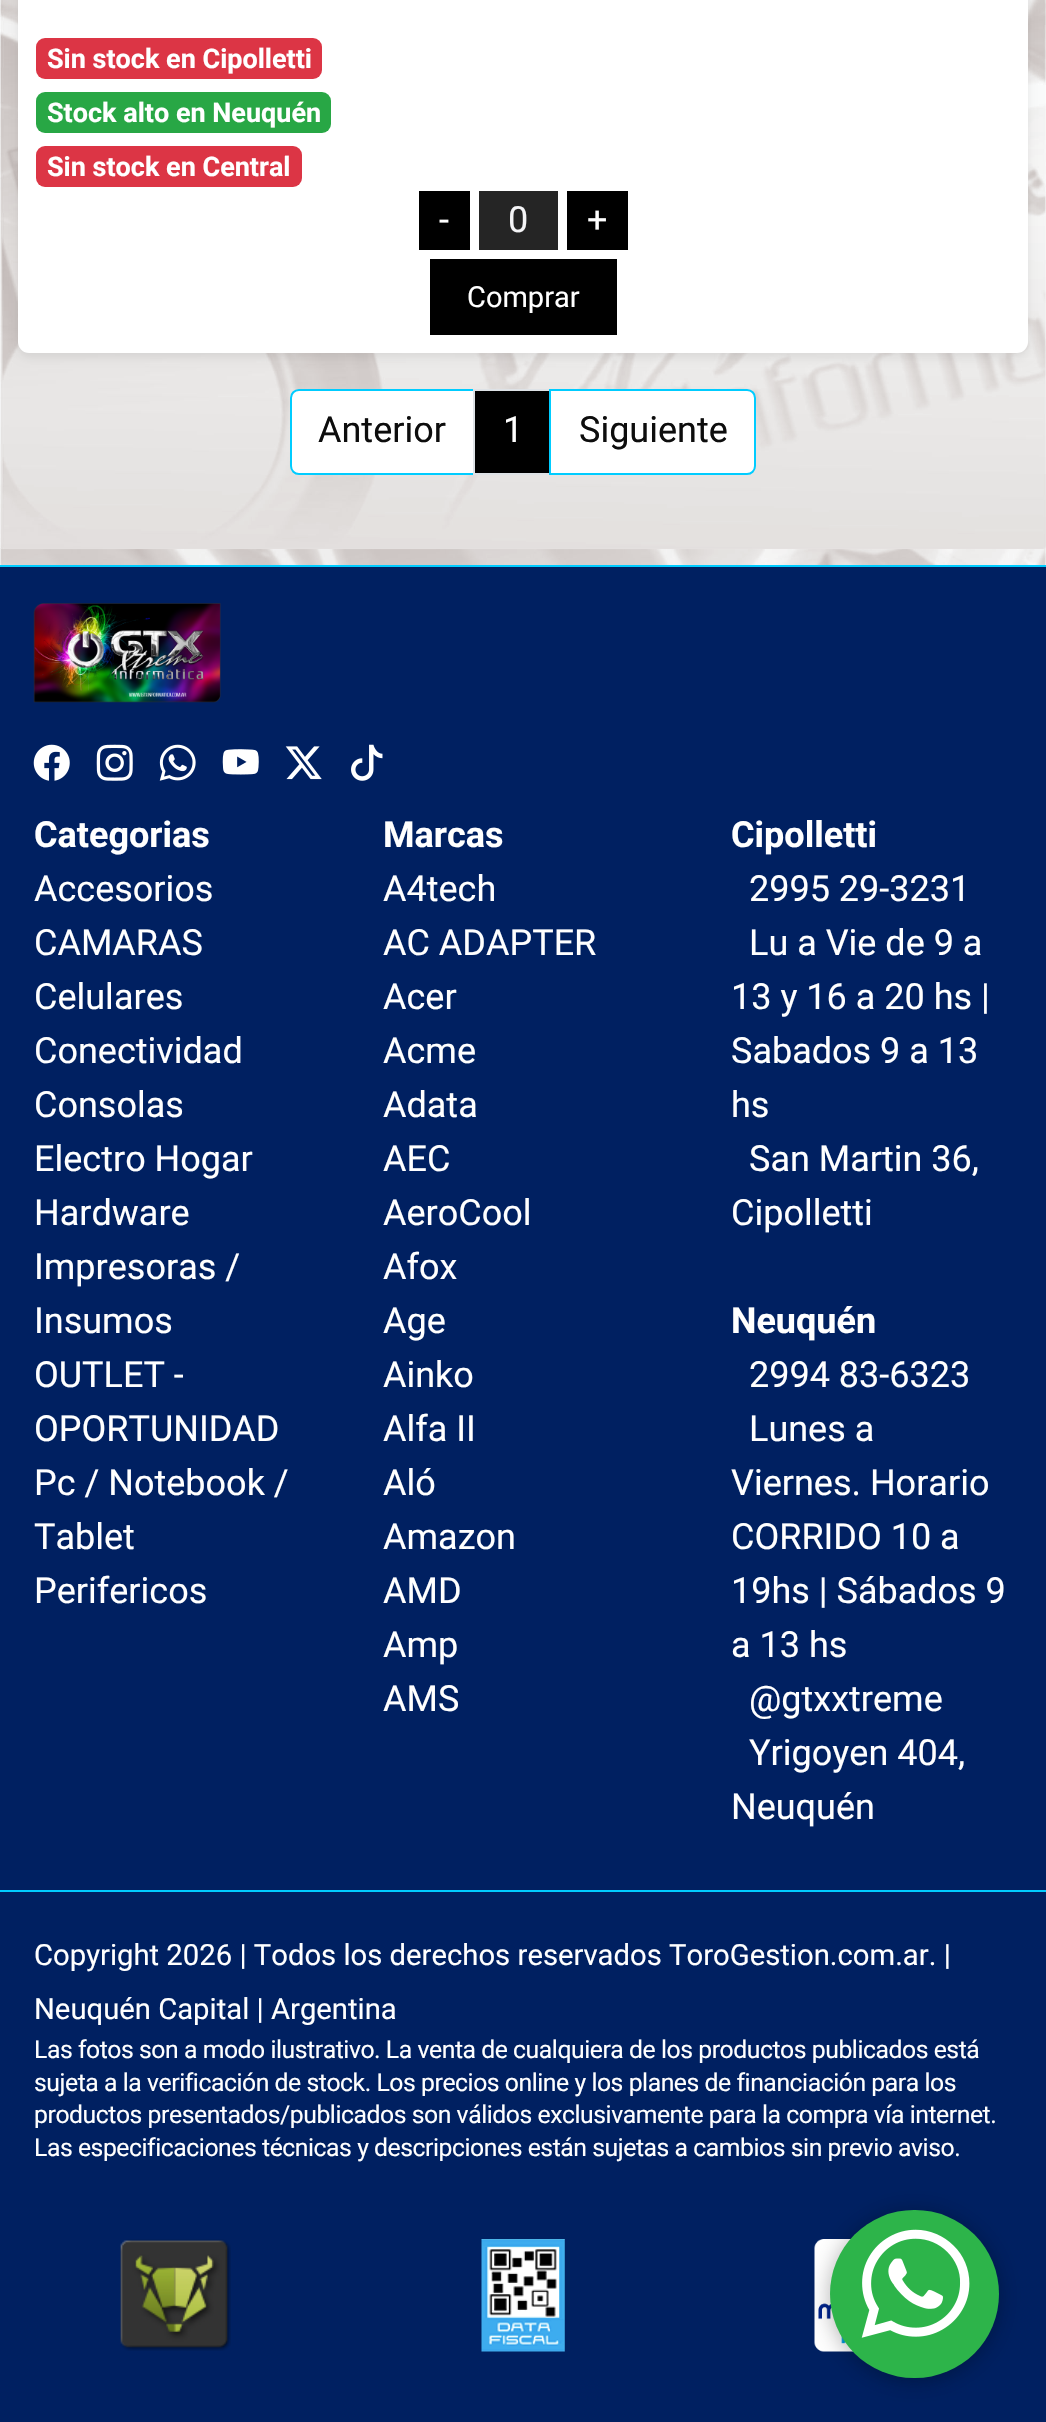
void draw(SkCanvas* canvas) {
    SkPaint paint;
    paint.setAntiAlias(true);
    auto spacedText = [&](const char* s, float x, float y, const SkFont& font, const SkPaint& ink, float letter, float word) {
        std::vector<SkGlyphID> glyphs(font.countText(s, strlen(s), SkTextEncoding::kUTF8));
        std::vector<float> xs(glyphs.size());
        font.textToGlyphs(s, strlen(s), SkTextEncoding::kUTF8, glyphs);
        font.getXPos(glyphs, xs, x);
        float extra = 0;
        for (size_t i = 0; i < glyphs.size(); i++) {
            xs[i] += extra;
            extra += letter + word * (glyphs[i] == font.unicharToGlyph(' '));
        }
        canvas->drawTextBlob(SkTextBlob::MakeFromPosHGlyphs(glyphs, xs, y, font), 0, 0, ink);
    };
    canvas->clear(0xFF002061);
    canvas->drawImageRect(SkImages::DeferredFromEncodedData(SkData::MakeFromFileName("img1.png")), SkRect::MakeXYWH(0, 0, 1046, 565), SkSamplingOptions());
    paint.setColor(0x12000000);
    paint.setMaskFilter(SkMaskFilter::MakeBlur(kNormal_SkBlurStyle, 4.5f));
    canvas->drawRoundRect(SkRect::MakeXYWH(18, -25, 1010, 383), 11, 11, paint);
    paint.setMaskFilter(nullptr);
    paint.setColor(0xFFFFFFFF);
    canvas->drawRoundRect(SkRect::MakeXYWH(18, -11, 1010, 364), 11, 11, paint);
    paint.setColor(0xFFDC3545);
    canvas->drawRoundRect(SkRect::MakeXYWH(36, 38, 286, 41), 9, 9, paint);
    SkFont font1(fontMgr->matchFamilyStyle("Roboto", SkFontStyle::Bold()), 27);
    font1.setSubpixel(true);
    paint.setColor(0xFFFFFFFF);
    canvas->drawString("Sin stock en Cipolletti", 47, 68, font1, paint);
    paint.setColor(0xFF28A745);
    canvas->drawRoundRect(SkRect::MakeXYWH(36, 92, 295, 41), 9, 9, paint);
    paint.setColor(0xFFFFFFFF);
    canvas->drawString("Stock alto en Neuquén", 47, 122, font1, paint);
    paint.setColor(0xFFDC3545);
    canvas->drawRoundRect(SkRect::MakeXYWH(36, 146, 266, 41), 9, 9, paint);
    paint.setColor(0xFFFFFFFF);
    canvas->drawString("Sin stock en Central", 47, 176, font1, paint);
    paint.setColor(0xFF000000);
    canvas->drawRect(SkRect::MakeXYWH(419, 191, 51, 59), paint);
    SkFont font2(fontMgr->matchFamilyStyle("Roboto", SkFontStyle::Normal()), 36);
    font2.setSubpixel(true);
    paint.setColor(0xFFFFFFFF);
    canvas->drawString("-", 439, 232, font2, paint);
    paint.setColor(0xFF252525);
    canvas->drawRect(SkRect::MakeXYWH(479, 191, 79, 59), paint);
    paint.setColor(0xFFF5F5F7);
    canvas->drawString("0", 508, 232, font2, paint);
    paint.setColor(0xFF000000);
    canvas->drawRect(SkRect::MakeXYWH(567, 191, 61, 59), paint);
    paint.setColor(0xFFFFFFFF);
    canvas->drawString("+", 587, 232, font2, paint);
    paint.setColor(0xFF000000);
    canvas->drawRect(SkRect::MakeXYWH(430, 259, 187, 76), paint);
    SkFont font3(fontMgr->matchFamilyStyle("Roboto", SkFontStyle::Normal()), 29);
    font3.setSubpixel(true);
    paint.setColor(0xFFFFFFFF);
    canvas->drawString("Comprar", 467, 307, font3, paint);
    canvas->drawPath(SkPathBuilder().moveTo(299, 390).lineTo(474, 390).lineTo(474, 474).lineTo(299, 474).cubicTo(294.5f, 474, 291, 470.5f, 291, 466).lineTo(291, 398).cubicTo(291, 393.5f, 294.5f, 390, 299, 390).close().detach(), paint);
    paint.setStyle(SkPaint::kStroke_Style);
    paint.setStrokeWidth(2);
    paint.setColor(0xFF00CCFF);
    canvas->drawPath(SkPathBuilder().moveTo(299, 390).lineTo(474, 390).lineTo(474, 474).lineTo(299, 474).cubicTo(294.5f, 474, 291, 470.5f, 291, 466).lineTo(291, 398).cubicTo(291, 393.5f, 294.5f, 390, 299, 390).close().detach(), paint);
    paint.setStyle(SkPaint::kFill_Style);
    paint.setColor(0xFF0D0D0D);
    canvas->drawString("Anterior", 318, 442, font2, paint);
    paint.setColor(0xFF000000);
    canvas->drawRect(SkRect::MakeXYWH(474, 390, 76, 84), paint);
    paint.setStyle(SkPaint::kStroke_Style);
    paint.setColor(0xFFDEE2E6);
    canvas->drawRect(SkRect::MakeXYWH(474, 390, 76, 84), paint);
    paint.setStyle(SkPaint::kFill_Style);
    paint.setColor(0xFFFFFFFF);
    canvas->drawString("1", 503, 442, font2, paint);
    canvas->drawPath(SkPathBuilder().moveTo(550, 390).lineTo(747, 390).cubicTo(751.5f, 390, 755, 393.5f, 755, 398).lineTo(755, 466).cubicTo(755, 470.5f, 751.5f, 474, 747, 474).lineTo(550, 474).close().detach(), paint);
    paint.setStyle(SkPaint::kStroke_Style);
    paint.setColor(0xFF00CCFF);
    canvas->drawPath(SkPathBuilder().moveTo(550, 390).lineTo(747, 390).cubicTo(751.5f, 390, 755, 393.5f, 755, 398).lineTo(755, 466).cubicTo(755, 470.5f, 751.5f, 474, 747, 474).lineTo(550, 474).close().detach(), paint);
    paint.setStyle(SkPaint::kFill_Style);
    paint.setColor(0xFF0D0D0D);
    canvas->drawString("Siguiente", 579, 442, font2, paint);
    paint.setColor(0xFF00CCFF);
    canvas->drawRect(SkRect::MakeXYWH(0, 565, 1046, 2), paint);
    canvas->drawImageRect(SkImages::DeferredFromEncodedData(SkData::MakeFromFileName("img2.png")), SkRect::MakeXYWH(33, 603, 188, 100), SkSamplingOptions());
    canvas->drawImageRect(SkImages::DeferredFromEncodedData(SkData::MakeFromFileName("img3.png")), SkRect::MakeXYWH(33, 744, 37, 37), SkSamplingOptions());
    canvas->drawImageRect(SkImages::DeferredFromEncodedData(SkData::MakeFromFileName("img4.png")), SkRect::MakeXYWH(96, 744, 37, 37), SkSamplingOptions());
    canvas->drawImageRect(SkImages::DeferredFromEncodedData(SkData::MakeFromFileName("img5.png")), SkRect::MakeXYWH(159, 744, 37, 37), SkSamplingOptions());
    canvas->drawImageRect(SkImages::DeferredFromEncodedData(SkData::MakeFromFileName("img6.png")), SkRect::MakeXYWH(222, 749, 37, 26), SkSamplingOptions());
    canvas->drawImageRect(SkImages::DeferredFromEncodedData(SkData::MakeFromFileName("img7.png")), SkRect::MakeXYWH(285, 746, 37, 34), SkSamplingOptions());
    canvas->drawImageRect(SkImages::DeferredFromEncodedData(SkData::MakeFromFileName("img8.png")), SkRect::MakeXYWH(351, 744, 32, 37), SkSamplingOptions());
    SkFont font4(fontMgr->matchFamilyStyle("Roboto", SkFontStyle::Bold()), 36);
    font4.setSubpixel(true);
    paint.setColor(0xFFFFFFFF);
    canvas->drawString("Categorias", 34, 847, font4, paint);
    canvas->drawString("Accesorios", 34, 901, font2, paint);
    canvas->drawString("CAMARAS", 34, 955, font2, paint);
    canvas->drawString("Celulares", 34, 1009, font2, paint);
    canvas->drawString("Conectividad", 34, 1063, font2, paint);
    canvas->drawString("Consolas", 34, 1117, font2, paint);
    canvas->drawString("Electro Hogar", 34, 1171, font2, paint);
    canvas->drawString("Hardware", 34, 1225, font2, paint);
    canvas->drawString("Impresoras /", 34, 1279, font2, paint);
    canvas->drawString("Insumos", 34, 1333, font2, paint);
    canvas->drawString("OUTLET -", 34, 1387, font2, paint);
    canvas->drawString("OPORTUNIDAD", 34, 1441, font2, paint);
    canvas->drawString("Pc / Notebook /", 34, 1495, font2, paint);
    canvas->drawString("Tablet", 34, 1549, font2, paint);
    canvas->drawString("Perifericos", 34, 1603, font2, paint);
    canvas->drawString("Marcas", 383, 847, font4, paint);
    canvas->drawString("A4tech", 383, 901, font2, paint);
    canvas->drawString("AC ADAPTER", 383, 955, font2, paint);
    canvas->drawString("Acer", 383, 1009, font2, paint);
    canvas->drawString("Acme", 383, 1063, font2, paint);
    canvas->drawString("Adata", 383, 1117, font2, paint);
    canvas->drawString("AEC", 383, 1171, font2, paint);
    canvas->drawString("AeroCool", 383, 1225, font2, paint);
    canvas->drawString("Afox", 383, 1279, font2, paint);
    canvas->drawString("Age", 383, 1333, font2, paint);
    canvas->drawString("Ainko", 383, 1387, font2, paint);
    canvas->drawString("Alfa II", 383, 1441, font2, paint);
    canvas->drawString("Aló", 383, 1495, font2, paint);
    canvas->drawString("Amazon", 383, 1549, font2, paint);
    canvas->drawString("AMD", 383, 1603, font2, paint);
    canvas->drawString("Amp", 383, 1657, font2, paint);
    canvas->drawString("AMS", 383, 1711, font2, paint);
    canvas->drawString("Cipolletti", 731, 847, font4, paint);
    canvas->drawString("2995 29-3231", 749, 901, font2, paint);
    canvas->drawString("Lu a Vie de 9 a", 749, 955, font2, paint);
    canvas->drawString("13 y 16 a 20 hs |", 731, 1009, font2, paint);
    canvas->drawString("Sabados 9 a 13", 731, 1063, font2, paint);
    canvas->drawString("hs", 731, 1117, font2, paint);
    canvas->drawString("San Martin 36,", 749, 1171, font2, paint);
    canvas->drawString("Cipolletti", 731, 1225, font2, paint);
    canvas->drawString("Neuquén", 731, 1333, font4, paint);
    canvas->drawString("2994 83-6323", 749, 1387, font2, paint);
    canvas->drawString("Lunes a", 749, 1441, font2, paint);
    canvas->drawString("Viernes. Horario", 731, 1495, font2, paint);
    canvas->drawString("CORRIDO 10 a", 731, 1549, font2, paint);
    canvas->drawString("19hs | Sábados 9", 731, 1603, font2, paint);
    canvas->drawString("a 13 hs", 731, 1657, font2, paint);
    canvas->drawString("@gtxxtreme", 749, 1711, font2, paint);
    canvas->drawString("Yrigoyen 404,", 749, 1765, font2, paint);
    canvas->drawString("Neuquén", 731, 1819, font2, paint);
    paint.setColor(0xFF00CCFF);
    canvas->drawRect(SkRect::MakeXYWH(0, 1890, 1046, 2), paint);
    SkFont font5(fontMgr->matchFamilyStyle("Roboto", SkFontStyle::Normal()), 29.25f);
    font5.setSubpixel(true);
    paint.setColor(0xFFFFFFFF);
    canvas->drawString("Copyright 2026 | Todos los derechos reservados ToroGestion.com.ar. |", 34, 1965, font5, paint);
    canvas->drawString("Neuquén Capital | Argentina", 34, 2019, font5, paint);
    SkFont font6(fontMgr->matchFamilyStyle("Roboto", SkFontStyle::Normal()), 24.75f);
    font6.setSubpixel(true);
    spacedText("Las fotos son a modo ilustrativo. La venta de cualquiera de los productos publicados está", 34, 2058, font6, paint, -0.45f, 0);
    spacedText("sujeta a la verificación de stock. Los precios online y los planes de financiación para los", 34, 2091, font6, paint, -0.45f, 0);
    spacedText("productos presentados/publicados son válidos exclusivamente para la compra vía internet.", 34, 2123, font6, paint, -0.45f, 0);
    spacedText("Las especificaciones técnicas y descripciones están sujetas a cambios sin previo aviso.", 34, 2156, font6, paint, -0.45f, 0);
    canvas->drawImageRect(SkImages::DeferredFromEncodedData(SkData::MakeFromFileName("img9.png")), SkRect::MakeXYWH(120, 2239, 111, 112), SkSamplingOptions());
    canvas->drawImageRect(SkImages::DeferredFromEncodedData(SkData::MakeFromFileName("img10.png")), SkRect::MakeXYWH(481, 2239, 84, 113), SkSamplingOptions());
    canvas->drawImageRect(SkImages::DeferredFromEncodedData(SkData::MakeFromFileName("img11.png")), SkRect::MakeXYWH(814, 2239, 40, 113), SkSamplingOptions());
    paint.setColor(0x4D000000);
    paint.setMaskFilter(SkMaskFilter::MakeBlur(kNormal_SkBlurStyle, 11));
    canvas->drawRoundRect(SkRect::MakeXYWH(830, 2212, 169, 169), 84.5f, 84.5f, paint);
    paint.setMaskFilter(nullptr);
    paint.setColor(0xFF2DB44A);
    canvas->drawRoundRect(SkRect::MakeXYWH(830, 2210, 169, 168), 84, 84, paint);
    canvas->drawImageRect(SkImages::DeferredFromEncodedData(SkData::MakeFromFileName("img12.png")), SkRect::MakeXYWH(861, 2229, 109, 109), SkSamplingOptions());
}
